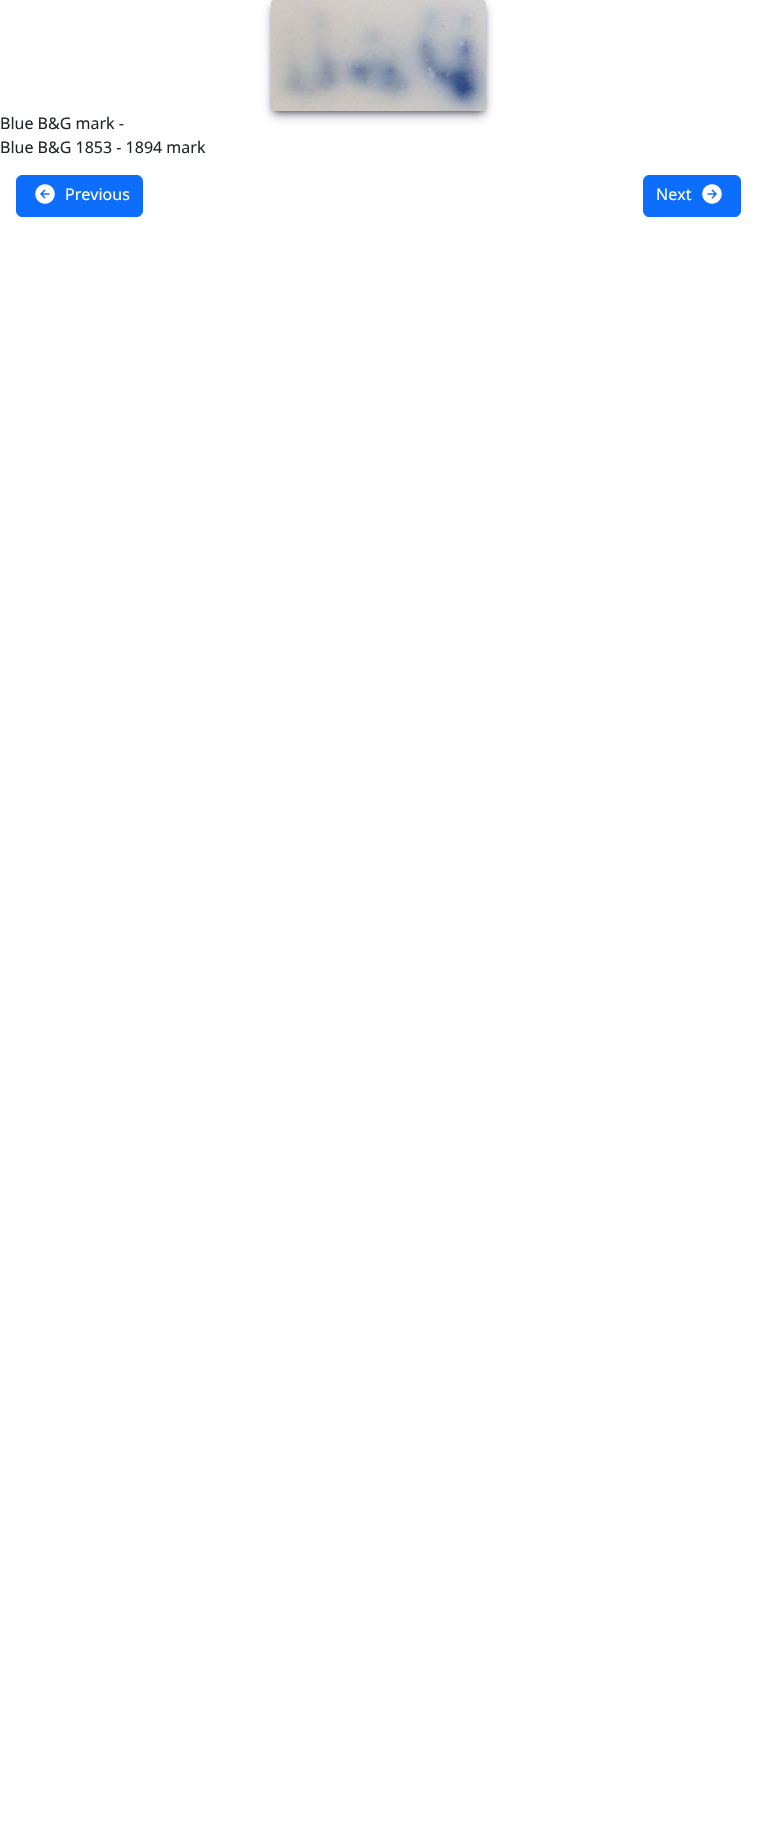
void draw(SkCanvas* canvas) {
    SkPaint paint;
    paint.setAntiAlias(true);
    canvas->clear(0xFFFFFFFF);
    SkFont font1(fontMgr->matchFamilyStyle("Noto Sans", SkFontStyle::Normal()), 16);
    font1.setSubpixel(true);
    paint.setColor(0xFF212529);
    canvas->drawString("Blue B&G mark -", 0, 129, font1, paint);
    canvas->drawString("Blue B&G 1853 - 1894 mark", 0, 153, font1, paint);
    paint.setColor(0x6632325D);
    paint.setMaskFilter(SkMaskFilter::MakeBlur(kNormal_SkBlurStyle, 6));
    canvas->drawRoundRect(SkRect::MakeXYWH(273, 8, 211, 107), 1, 1, paint);
    paint.setMaskFilter(nullptr);
    paint.setColor(0xB3000000);
    paint.setMaskFilter(SkMaskFilter::MakeBlur(kNormal_SkBlurStyle, 3.5f));
    canvas->drawRect(SkRect::MakeXYWH(274, 6, 209, 105), paint);
    paint.setMaskFilter(nullptr);
    canvas->drawImageRect(SkImages::DeferredFromEncodedData(SkData::MakeFromFileName("img1.png")), SkRect::MakeXYWH(271, 0, 215, 111), SkSamplingOptions());
    paint.setColor(0xFF0D6EFD);
    canvas->drawRoundRect(SkRect::MakeXYWH(16.5f, 175.5f, 126, 41), 5.5f, 5.5f, paint);
    paint.setStyle(SkPaint::kStroke_Style);
    paint.setStrokeWidth(1);
    canvas->drawRoundRect(SkRect::MakeXYWH(16.5f, 175.5f, 126, 41), 5.5f, 5.5f, paint);
    canvas->drawImageRect(SkImages::DeferredFromEncodedData(SkData::MakeFromFileName("img2.png")), SkRect::MakeXYWH(35, 184, 20, 20), SkSamplingOptions());
    paint.setStyle(SkPaint::kFill_Style);
    paint.setColor(0xFFFFFFFF);
    canvas->drawString("Previous", 65, 200, font1, paint);
    paint.setColor(0xFF0D6EFD);
    canvas->drawRoundRect(SkRect::MakeXYWH(643.5f, 175.5f, 97, 41), 5.5f, 5.5f, paint);
    paint.setStyle(SkPaint::kStroke_Style);
    canvas->drawRoundRect(SkRect::MakeXYWH(643.5f, 175.5f, 97, 41), 5.5f, 5.5f, paint);
    paint.setStyle(SkPaint::kFill_Style);
    paint.setColor(0xFFFFFFFF);
    canvas->drawString("Next", 656, 200, font1, paint);
    canvas->drawImageRect(SkImages::DeferredFromEncodedData(SkData::MakeFromFileName("img3.png")), SkRect::MakeXYWH(702, 184, 20, 20), SkSamplingOptions());
}
